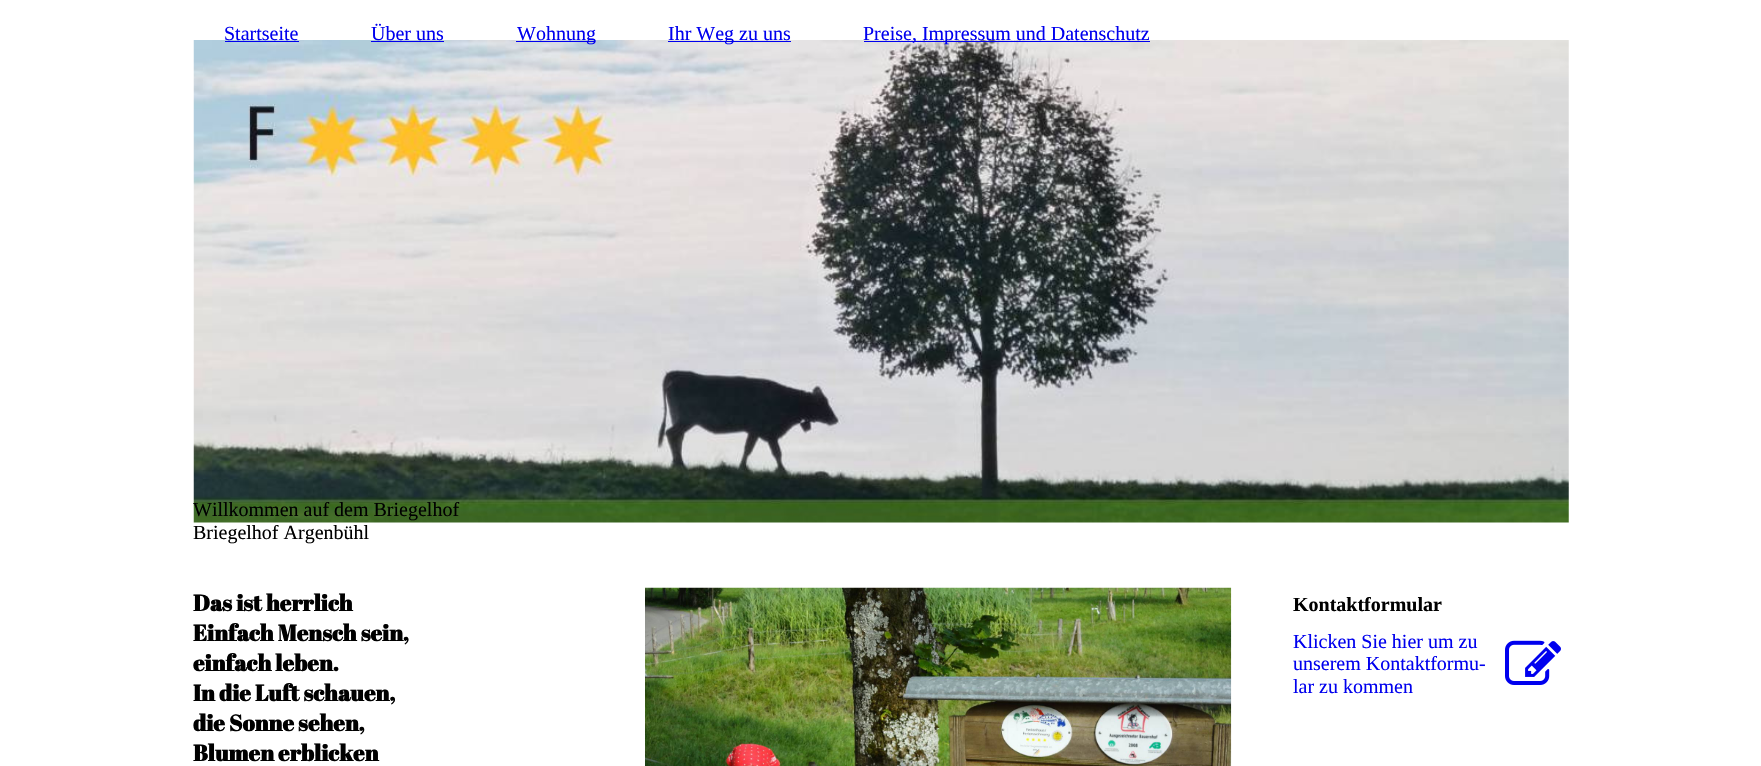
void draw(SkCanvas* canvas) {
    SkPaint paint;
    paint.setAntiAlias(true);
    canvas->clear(0xFFFFFFFF);
    canvas->drawImageRect(SkImages::DeferredFromEncodedData(SkData::MakeFromFileName("img1.png")), SkRect::MakeXYWH(193, 40, 1376, 483), SkSamplingOptions());
    SkFont font1(fontMgr->matchFamilyStyle("Liberation Serif", SkFontStyle::Normal()), 20);
    font1.setSubpixel(true);
    paint.setColor(0xFF0000EE);
    canvas->drawString("Startseite", 224, 40, font1, paint);
    canvas->drawRect(SkRect::MakeXYWH(225, 41, 74, 1), paint);
    canvas->drawString("Über uns", 371, 40, font1, paint);
    canvas->drawRect(SkRect::MakeXYWH(371, 41, 73, 1), paint);
    canvas->drawRect(SkRect::MakeXYWH(516, 41, 79, 1), paint);
    canvas->drawString("Wohnung", 517, 40, font1, paint);
    canvas->drawRect(SkRect::MakeXYWH(668, 41, 123, 1), paint);
    canvas->drawString("Ihr Weg zu uns", 668, 40, font1, paint);
    canvas->drawRect(SkRect::MakeXYWH(864, 41, 286, 1), paint);
    canvas->drawString("Preise, Impressum und Datenschutz", 863, 40, font1, paint);
    paint.setColor(0xFF000000);
    canvas->drawString("Willkommen auf dem Briegelhof", 193, 516, font1, paint);
    canvas->drawString("Briegelhof Argenbühl", 193, 539, font1, paint);
    SkFont font2(fontMgr->matchFamilyStyle("Abril Fatface", SkFontStyle::Bold()), 22.5f);
    font2.setSubpixel(true);
    canvas->drawString("Das ist herrlich", 193, 611, font2, paint);
    canvas->drawString("Einfach Mensch sein,", 193, 641, font2, paint);
    canvas->drawString("einfach leben.", 193, 671, font2, paint);
    canvas->drawString("In die Luft schauen,", 193, 701, font2, paint);
    canvas->drawString("die Sonne sehen,", 193, 731, font2, paint);
    canvas->drawString("Blumen erblicken", 193, 761, font2, paint);
    canvas->drawImageRect(SkImages::DeferredFromEncodedData(SkData::MakeFromFileName("img2.png")), SkRect::MakeXYWH(645, 587, 587, 179), SkSamplingOptions());
    SkFont font3(fontMgr->matchFamilyStyle("Liberation Serif", SkFontStyle::Bold()), 20);
    font3.setSubpixel(true);
    canvas->drawString("Kontaktformular", 1293, 611, font3, paint);
    paint.setColor(0xFF0000EE);
    canvas->drawString("Klicken Sie hier um zu", 1293, 648, font1, paint);
    canvas->drawString("unserem Kontaktformu-", 1293, 670, font1, paint);
    canvas->drawString("lar zu kommen", 1293, 693, font1, paint);
    canvas->drawImageRect(SkImages::DeferredFromEncodedData(SkData::MakeFromFileName("img3.png")), SkRect::MakeXYWH(1505, 640, 56, 45), SkSamplingOptions());
}
